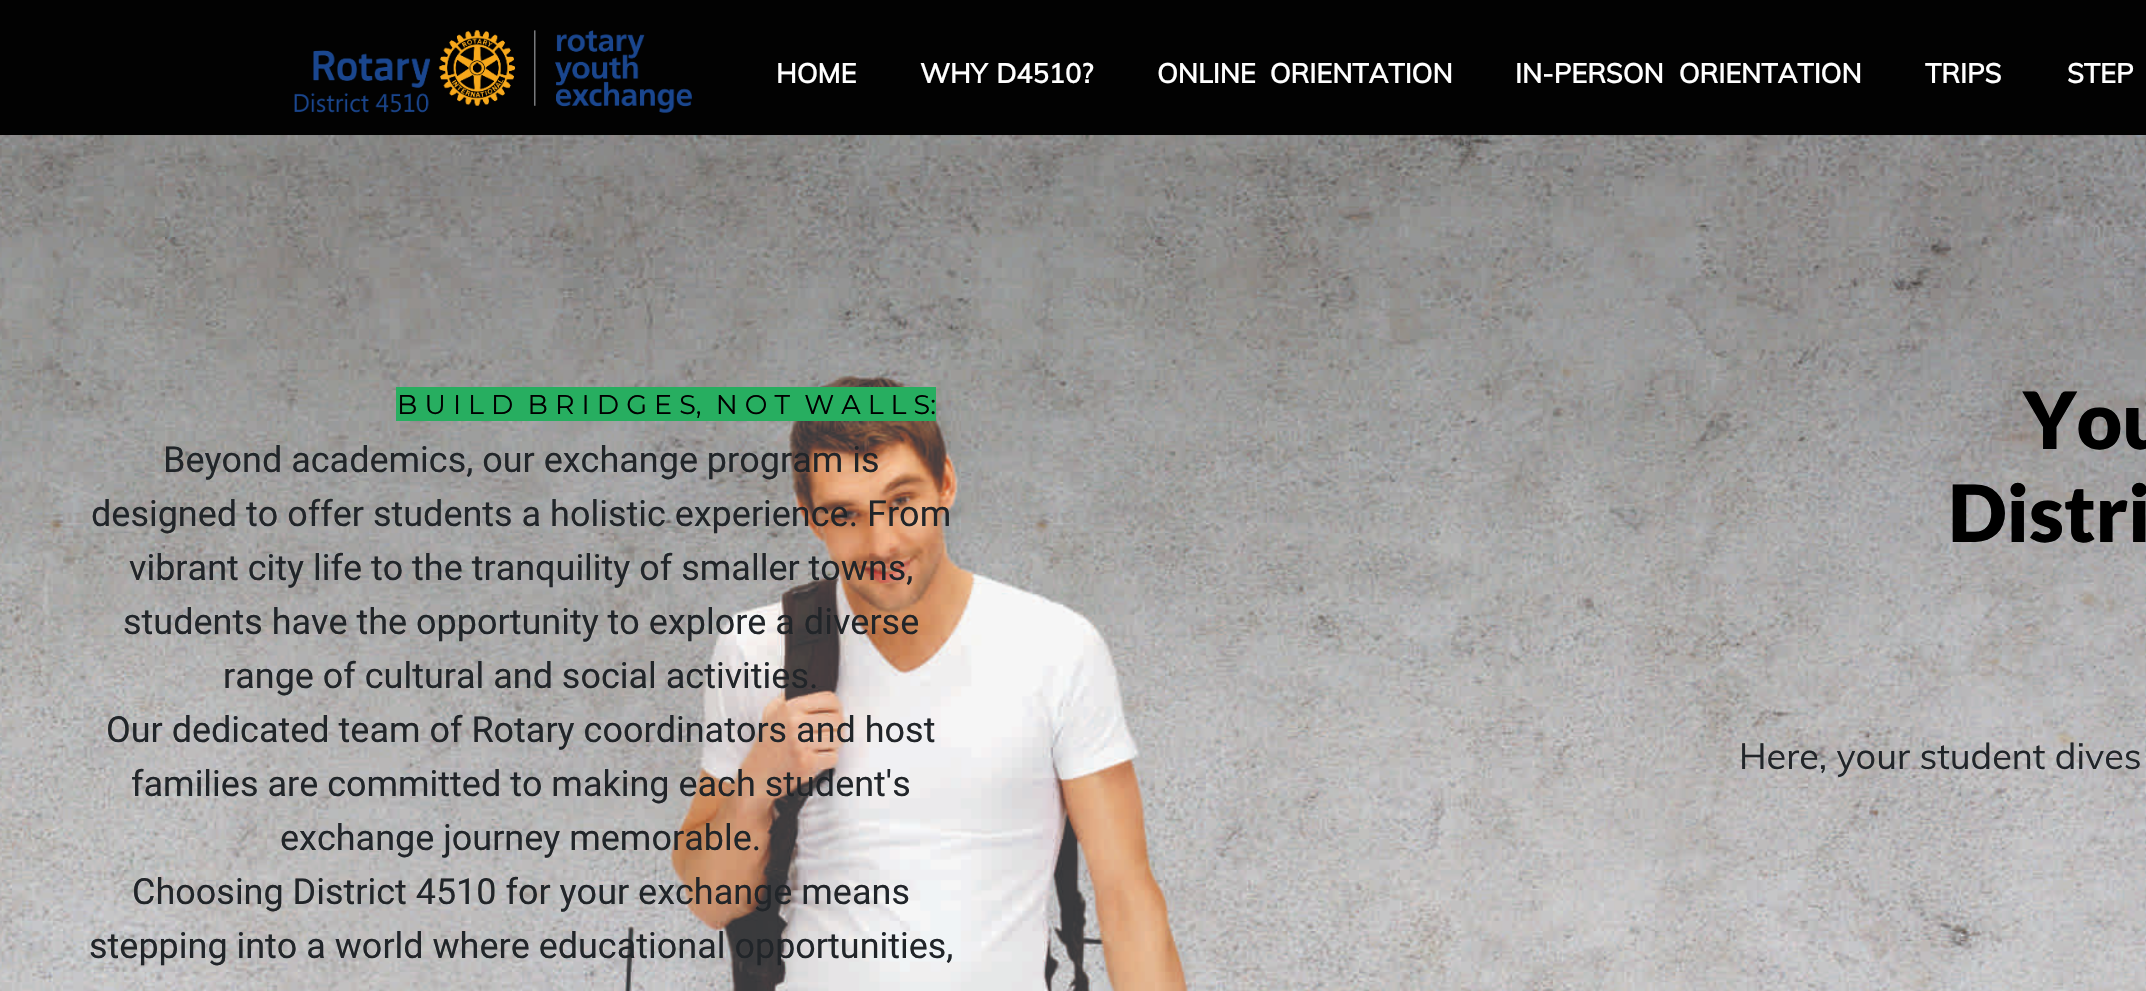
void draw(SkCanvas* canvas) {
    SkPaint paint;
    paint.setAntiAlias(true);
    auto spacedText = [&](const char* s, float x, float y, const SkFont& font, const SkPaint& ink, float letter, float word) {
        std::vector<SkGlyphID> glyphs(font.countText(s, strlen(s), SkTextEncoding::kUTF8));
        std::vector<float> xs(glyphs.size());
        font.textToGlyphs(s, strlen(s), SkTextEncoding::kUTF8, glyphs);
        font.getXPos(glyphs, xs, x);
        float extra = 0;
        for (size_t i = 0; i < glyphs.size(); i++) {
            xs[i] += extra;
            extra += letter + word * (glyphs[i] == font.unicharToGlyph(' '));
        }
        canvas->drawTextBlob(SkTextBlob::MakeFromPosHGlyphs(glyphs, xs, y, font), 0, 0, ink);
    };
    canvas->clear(0xFF020202);
    canvas->drawImageRect(SkImages::DeferredFromEncodedData(SkData::MakeFromFileName("img1.png")), SkRect::MakeXYWH(294, 30, 398, 83), SkSamplingOptions());
    SkFont font1(fontMgr->matchFamilyStyle("Muli", SkFontStyle::Bold()), 27);
    font1.setSubpixel(true);
    paint.setColor(0xFFFFFFFF);
    canvas->drawString("HOME", 776, 83, font1, paint);
    spacedText("WHY D4510?", 920, 83, font1, paint, 0, 2);
    spacedText("ONLINE ORIENTATION", 1157, 83, font1, paint, 0, 7);
    spacedText("IN-PERSON ORIENTATION", 1515, 83, font1, paint, 0, 8);
    canvas->drawString("TRIPS", 1925, 83, font1, paint);
    canvas->drawString("STEP", 2067, 83, font1, paint);
    canvas->drawImageRect(SkImages::DeferredFromEncodedData(SkData::MakeFromFileName("img2.png")), SkRect::MakeXYWH(0, 135, 2146, 856), SkSamplingOptions());
    paint.setColor(0xFF27AE60);
    canvas->drawRect(SkRect::MakeXYWH(396, 387, 540, 34), paint);
    SkFont font2(fontMgr->matchFamilyStyle("Montserrat", SkFontStyle::Normal()), 27);
    font2.setSubpixel(true);
    paint.setColor(0xFF000000);
    canvas->drawString("B U I L D  B R I D G E S,  N O T  W A L L S:", 397, 414, font2, paint);
    SkFont font3(fontMgr->matchFamilyStyle("Lato", SkFontStyle(900, SkFontStyle::kNormal_Width, SkFontStyle::kUpright_Slant)), 79);
    font3.setSubpixel(true);
    canvas->drawString("You", 2023, 449, font3, paint);
    canvas->drawString("Distri", 1948, 542, font3, paint);
    SkFont font4(fontMgr->matchFamilyStyle("Roboto", SkFontStyle::Normal()), 36);
    font4.setSubpixel(true);
    paint.setColor(0xFF212529);
    canvas->drawString("Beyond academics, our exchange program is", 163, 472, font4, paint);
    canvas->drawString("designed to offer students a holistic experience. From", 91, 526, font4, paint);
    canvas->drawString("vibrant city life to the tranquility of smaller towns,", 129, 580, font4, paint);
    canvas->drawString("students have the opportunity to explore a diverse", 123, 634, font4, paint);
    canvas->drawString("range of cultural and social activities.", 223, 688, font4, paint);
    canvas->drawString("Our dedicated team of Rotary coordinators and host", 106, 742, font4, paint);
    canvas->drawString("families are committed to making each student's", 131, 796, font4, paint);
    canvas->drawString("exchange journey memorable.", 280, 850, font4, paint);
    canvas->drawString("Choosing District 4510 for your exchange means", 132, 904, font4, paint);
    canvas->drawString("stepping into a world where educational opportunities,", 89, 958, font4, paint);
    SkFont font5(fontMgr->matchFamilyStyle("Muli", SkFontStyle::Normal()), 36);
    font5.setSubpixel(true);
    canvas->drawString("Here, your student dives", 1739, 769, font5, paint);
}
